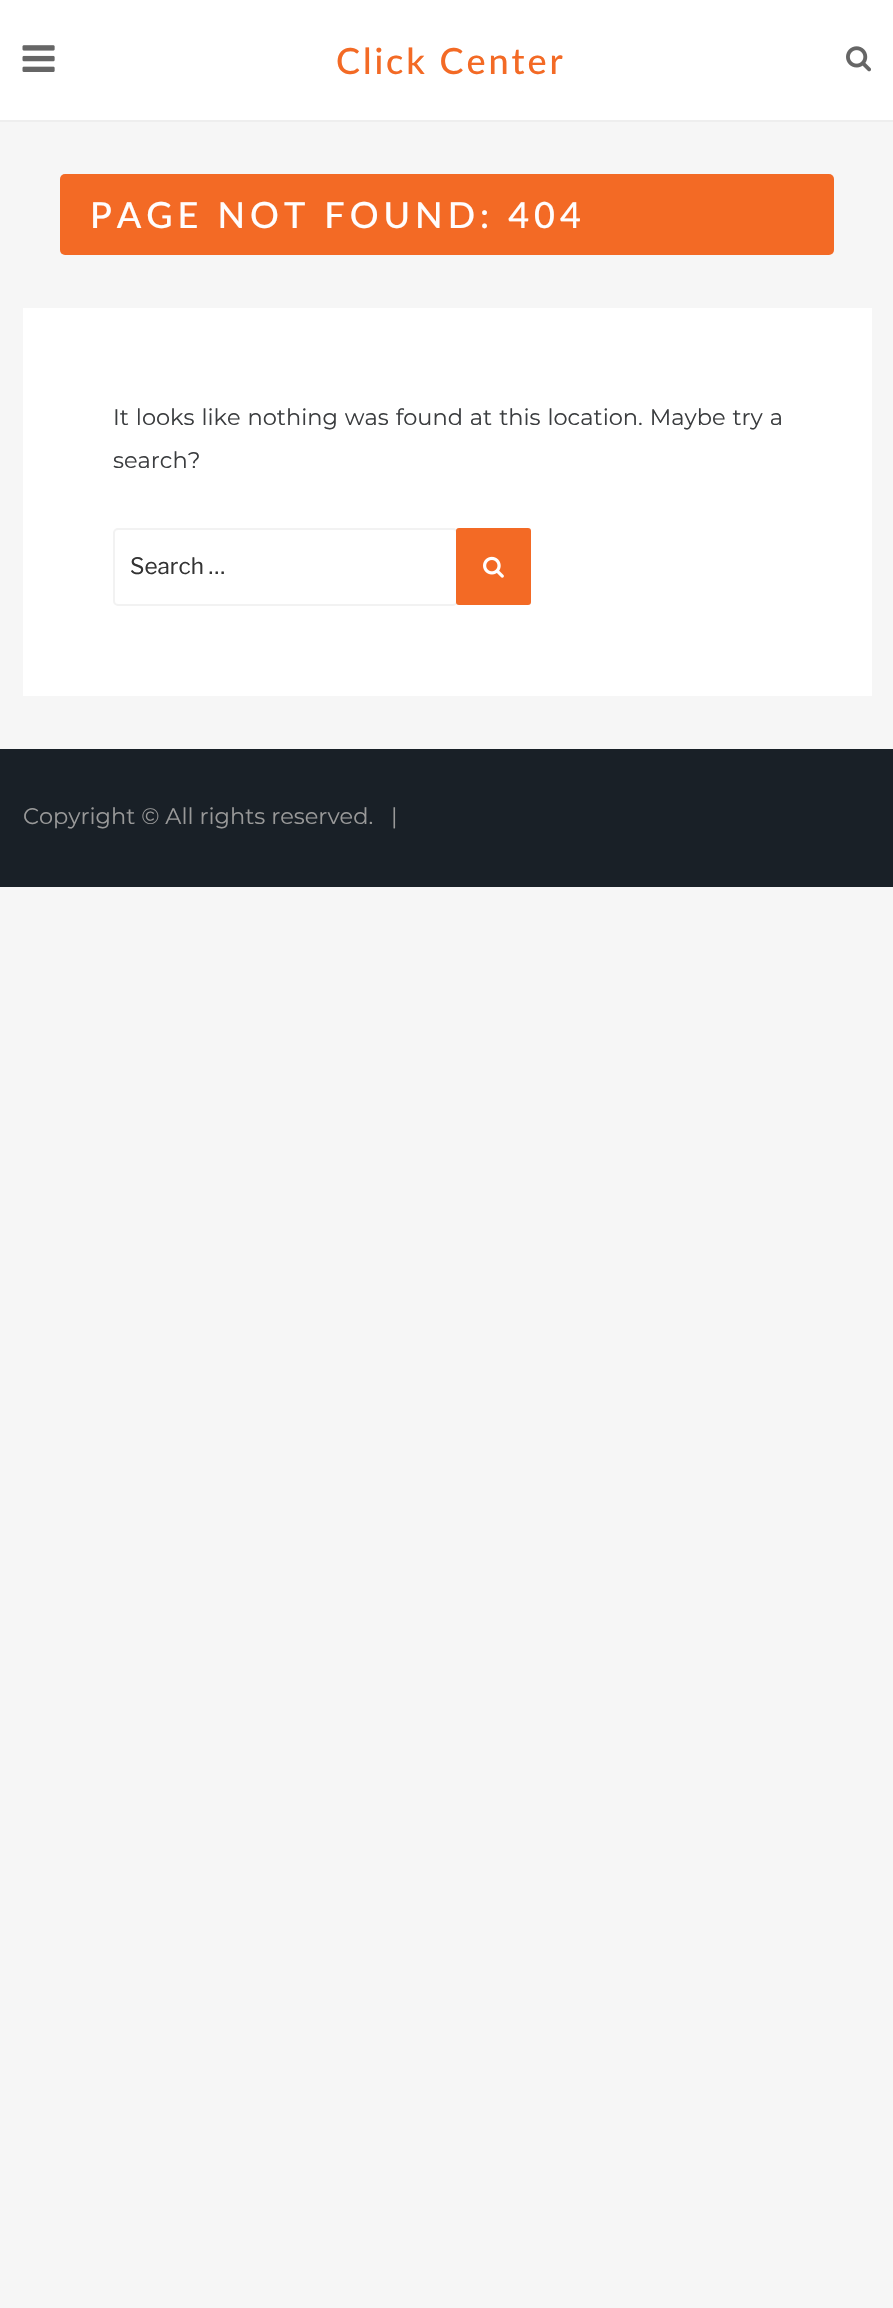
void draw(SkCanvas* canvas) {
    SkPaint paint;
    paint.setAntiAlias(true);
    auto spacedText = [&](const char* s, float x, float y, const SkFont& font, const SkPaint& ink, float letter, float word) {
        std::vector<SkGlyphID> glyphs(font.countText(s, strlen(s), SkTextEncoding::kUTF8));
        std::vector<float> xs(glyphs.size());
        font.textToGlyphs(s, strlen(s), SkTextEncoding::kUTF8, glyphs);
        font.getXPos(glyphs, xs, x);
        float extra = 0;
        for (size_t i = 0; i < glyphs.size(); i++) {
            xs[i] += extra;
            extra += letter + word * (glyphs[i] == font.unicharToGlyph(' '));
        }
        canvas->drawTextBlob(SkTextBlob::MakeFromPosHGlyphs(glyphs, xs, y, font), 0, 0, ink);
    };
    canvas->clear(0xFFF6F6F6);
    paint.setColor(0xFFFFFFFF);
    canvas->drawRect(SkRect::MakeXYWH(0, 0, 893, 120), paint);
    paint.setColor(0xFFEEEEEE);
    canvas->drawRect(SkRect::MakeXYWH(0, 120, 893, 2), paint);
    canvas->drawImageRect(SkImages::DeferredFromEncodedData(SkData::MakeFromFileName("img1.png")), SkRect::MakeXYWH(22, 45, 33, 27), SkSamplingOptions());
    SkFont font1(fontMgr->matchFamilyStyle("Lato", SkFontStyle(500, SkFontStyle::kNormal_Width, SkFontStyle::kUpright_Slant)), 36);
    font1.setSubpixel(true);
    paint.setColor(0xFFF36A25);
    spacedText("Click Center", 336, 74, font1, paint, 2.9f, 0);
    canvas->drawImageRect(SkImages::DeferredFromEncodedData(SkData::MakeFromFileName("img2.png")), SkRect::MakeXYWH(846, 46, 25, 26), SkSamplingOptions());
    canvas->drawRoundRect(SkRect::MakeXYWH(60, 174, 774, 81), 5, 5, paint);
    paint.setColor(0xFFFFFDFD);
    spacedText("PAGE NOT FOUND: 404", 90, 228, font1, paint, 5, 0);
    paint.setColor(0xFFFFFFFF);
    canvas->drawRect(SkRect::MakeXYWH(23, 308, 849, 388), paint);
    SkFont font2(fontMgr->matchFamilyStyle("Montserrat", SkFontStyle::Normal()), 22.5f);
    font2.setSubpixel(true);
    paint.setColor(0xFF3B3D3F);
    spacedText("It looks like nothing was found at this location. Maybe try a", 113, 425, font2, paint, 0, 1);
    canvas->drawString("search?", 113, 468, font2, paint);
    paint.setStyle(SkPaint::kStroke_Style);
    paint.setStrokeWidth(2);
    paint.setColor(0xFFF2F2F2);
    canvas->drawRoundRect(SkRect::MakeXYWH(114, 529, 343, 76), 4, 4, paint);
    SkFont font3(fontMgr->matchFamilyStyle("Libre Franklin", SkFontStyle::Normal()), 22.5f);
    font3.setSubpixel(true);
    paint.setStyle(SkPaint::kFill_Style);
    paint.setColor(0xFF333333);
    canvas->drawString("Search …", 130, 574, font3, paint);
    paint.setColor(0xFFF36A25);
    canvas->drawRoundRect(SkRect::MakeXYWH(456, 528, 75, 77), 3, 3, paint);
    canvas->drawImageRect(SkImages::DeferredFromEncodedData(SkData::MakeFromFileName("img3.png")), SkRect::MakeXYWH(483, 556, 21, 22), SkSamplingOptions());
    paint.setColor(0xFF192027);
    canvas->drawRect(SkRect::MakeXYWH(0, 749, 893, 138), paint);
    paint.setColor(0xFF999999);
    canvas->drawString("Copyright © All rights reserved.", 23, 824, font2, paint);
    canvas->drawString("|", 391, 824, font2, paint);
}
